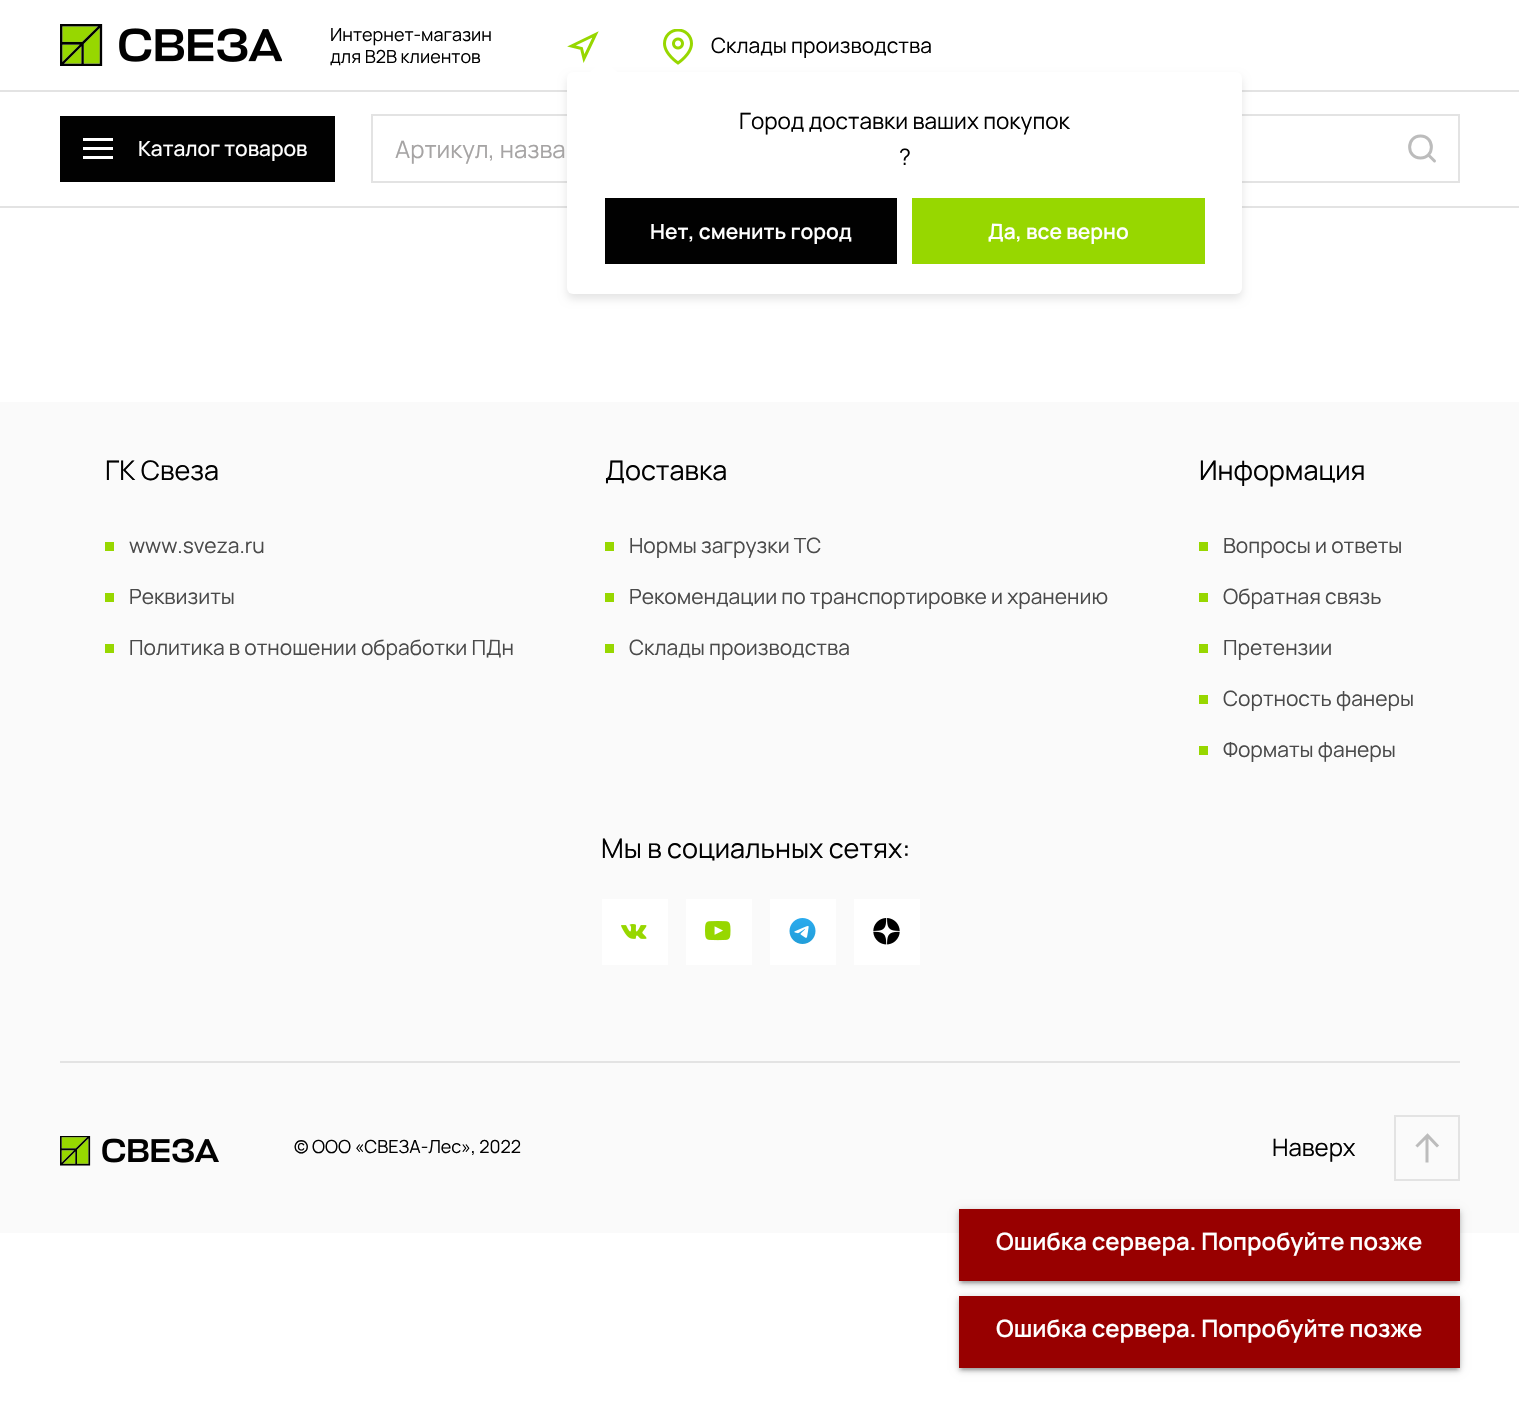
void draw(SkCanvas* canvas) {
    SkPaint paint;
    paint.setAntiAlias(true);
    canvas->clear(0xFFFFFFFF);
    paint.setColor(0xFFE3E3E3);
    canvas->drawRect(SkRect::MakeXYWH(0, 90, 1519, 2), paint);
    canvas->drawImageRect(SkImages::DeferredFromEncodedData(SkData::MakeFromFileName("img1.png")), SkRect::MakeXYWH(60, 24, 222, 42), SkSamplingOptions());
    SkFont font1(fontMgr->matchFamilyStyle("Manrope", SkFontStyle::Normal()), 18);
    font1.setSubpixel(true);
    paint.setColor(0xFF010101);
    canvas->drawString("Интернет-магазин", 330, 41, font1, paint);
    canvas->drawString("для B2B клиентов", 330, 63, font1, paint);
    canvas->drawImageRect(SkImages::DeferredFromEncodedData(SkData::MakeFromFileName("img2.png")), SkRect::MakeXYWH(663, 29, 30, 36), SkSamplingOptions());
    SkFont font2(fontMgr->matchFamilyStyle("Manrope", SkFontStyle::Normal()), 21);
    font2.setSubpixel(true);
    canvas->drawString("Склады производства", 711, 53, font2, paint);
    paint.setStyle(SkPaint::kStroke_Style);
    paint.setStrokeWidth(3);
    paint.setStrokeCap(SkPaint::kRound_Cap);
    paint.setColor(0xFF97D700);
    canvas->drawPath(SkPathBuilder().moveTo(571.5f, 46).lineTo(595.5f, 34.5f).lineTo(584, 58.5f).lineTo(581.5f, 48.5f).close().detach(), paint);
    paint.setStyle(SkPaint::kFill_Style);
    paint.setColor(0xFFE3E3E3);
    canvas->drawRect(SkRect::MakeXYWH(0, 206, 1519, 2), paint);
    paint.setStyle(SkPaint::kStroke_Style);
    paint.setStrokeWidth(2);
    paint.setStrokeCap(SkPaint::kButt_Cap);
    canvas->drawRect(SkRect::MakeXYWH(372, 115, 1087, 67), paint);
    paint.setStyle(SkPaint::kFill_Style);
    paint.setColor(0x1A000000);
    paint.setMaskFilter(SkMaskFilter::MakeBlur(kNormal_SkBlurStyle, 4.5f));
    canvas->drawRoundRect(SkRect::MakeXYWH(567, 77, 675, 222), 6, 6, paint);
    paint.setMaskFilter(nullptr);
    paint.setColor(0xFFFFFFFF);
    canvas->drawRoundRect(SkRect::MakeXYWH(567, 72, 675, 222), 6, 6, paint);
    canvas->drawPath(SkPathBuilder().moveTo(604, 58).lineTo(630, 85).lineTo(604, 111).lineTo(577, 85).close().detach(), paint);
    SkFont font3(fontMgr->matchFamilyStyle("Manrope", SkFontStyle::Normal()), 22.5f);
    font3.setSubpixel(true);
    paint.setColor(0xFF010101);
    canvas->drawString("Город доставки ваших покупок", 739, 129, font3, paint);
    canvas->drawString("?", 899, 165, font3, paint);
    canvas->drawRect(SkRect::MakeXYWH(605, 198, 292, 66), paint);
    SkFont font4(fontMgr->matchFamilyStyle("Manrope", SkFontStyle(600, SkFontStyle::kNormal_Width, SkFontStyle::kUpright_Slant)), 21);
    font4.setSubpixel(true);
    paint.setColor(0xFFFFFFFF);
    canvas->drawString("Нет, сменить город", 650, 239, font4, paint);
    paint.setColor(0xFF97D700);
    canvas->drawRect(SkRect::MakeXYWH(912, 198, 293, 66), paint);
    paint.setColor(0xFFFFFFFF);
    canvas->drawString("Да, все верно", 988, 239, font4, paint);
    paint.setColor(0xFF010101);
    canvas->drawRect(SkRect::MakeXYWH(60, 116, 275, 66), paint);
    paint.setColor(0xFFFFFFFF);
    canvas->drawRect(SkRect::MakeXYWH(83, 138, 30, 3), paint);
    canvas->drawRect(SkRect::MakeXYWH(83, 147, 30, 3), paint);
    canvas->drawRect(SkRect::MakeXYWH(83, 156, 30, 3), paint);
    SkFont font5(fontMgr->matchFamilyStyle("Manrope", SkFontStyle(500, SkFontStyle::kNormal_Width, SkFontStyle::kUpright_Slant)), 21);
    font5.setSubpixel(true);
    canvas->drawString("Каталог товаров", 138, 156, font5, paint);
    SkFont font6(fontMgr->matchFamilyStyle("Manrope", SkFontStyle::Normal()), 24);
    font6.setSubpixel(true);
    paint.setColor(0xFFA6A4A4);
    canvas->drawString("Артикул, назва", 395, 158, font6, paint);
    paint.setStyle(SkPaint::kStroke_Style);
    paint.setStrokeWidth(3);
    paint.setStrokeCap(SkPaint::kRound_Cap);
    paint.setStrokeJoin(SkPaint::kRound_Join);
    paint.setColor(0xFFBCBCBC);
    canvas->drawPath(SkPathBuilder().moveTo(1420.5f, 158).cubicTo(1435, 158, 1435, 136, 1420.5f, 136).cubicTo(1406, 136, 1406, 158, 1420.5f, 158).close().moveTo(1434.5f, 161).lineTo(1428.5f, 155).detach(), paint);
    paint.setStyle(SkPaint::kFill_Style);
    paint.setColor(0xFFFAFAFA);
    canvas->drawRect(SkRect::MakeXYWH(0, 402, 1519, 831), paint);
    SkFont font7(fontMgr->matchFamilyStyle("Manrope", SkFontStyle::Normal()), 27);
    font7.setSubpixel(true);
    paint.setColor(0xFF010101);
    canvas->drawString("ГК Свеза", 105, 480, font7, paint);
    paint.setColor(0xFF97D700);
    canvas->drawRect(SkRect::MakeXYWH(105, 542, 9, 9), paint);
    paint.setColor(0xFF4A4A4A);
    canvas->drawString("www.sveza.ru", 129, 553, font2, paint);
    paint.setColor(0xFF97D700);
    canvas->drawRect(SkRect::MakeXYWH(105, 593, 9, 9), paint);
    paint.setColor(0xFF4A4A4A);
    canvas->drawString("Реквизиты", 129, 604, font2, paint);
    paint.setColor(0xFF97D700);
    canvas->drawRect(SkRect::MakeXYWH(105, 644, 9, 9), paint);
    paint.setColor(0xFF4A4A4A);
    canvas->drawString("Политика в отношении обработки ПДн", 129, 655, font2, paint);
    paint.setColor(0xFF010101);
    canvas->drawString("Доставка", 605, 480, font7, paint);
    paint.setColor(0xFF97D700);
    canvas->drawRect(SkRect::MakeXYWH(605, 542, 9, 9), paint);
    paint.setColor(0xFF4A4A4A);
    canvas->drawString("Нормы загрузки ТС", 629, 553, font2, paint);
    paint.setColor(0xFF97D700);
    canvas->drawRect(SkRect::MakeXYWH(605, 593, 9, 9), paint);
    paint.setColor(0xFF4A4A4A);
    canvas->drawString("Рекомендации по транспортировке и хранению", 629, 604, font2, paint);
    paint.setColor(0xFF97D700);
    canvas->drawRect(SkRect::MakeXYWH(605, 644, 9, 9), paint);
    paint.setColor(0xFF4A4A4A);
    canvas->drawString("Склады производства", 629, 655, font2, paint);
    paint.setColor(0xFF010101);
    canvas->drawString("Информация", 1199, 480, font7, paint);
    paint.setColor(0xFF97D700);
    canvas->drawRect(SkRect::MakeXYWH(1199, 542, 9, 9), paint);
    paint.setColor(0xFF4A4A4A);
    canvas->drawString("Вопросы и ответы", 1223, 553, font2, paint);
    paint.setColor(0xFF97D700);
    canvas->drawRect(SkRect::MakeXYWH(1199, 593, 9, 9), paint);
    paint.setColor(0xFF4A4A4A);
    canvas->drawString("Обратная связь", 1223, 604, font2, paint);
    paint.setColor(0xFF97D700);
    canvas->drawRect(SkRect::MakeXYWH(1199, 644, 9, 9), paint);
    paint.setColor(0xFF4A4A4A);
    canvas->drawString("Претензии", 1223, 655, font2, paint);
    paint.setColor(0xFF97D700);
    canvas->drawRect(SkRect::MakeXYWH(1199, 695, 9, 9), paint);
    paint.setColor(0xFF4A4A4A);
    canvas->drawString("Сортность фанеры", 1223, 706, font2, paint);
    paint.setColor(0xFF97D700);
    canvas->drawRect(SkRect::MakeXYWH(1199, 746, 9, 9), paint);
    paint.setColor(0xFF4A4A4A);
    canvas->drawString("Форматы фанеры", 1223, 757, font2, paint);
    paint.setColor(0xFF010101);
    canvas->drawString("Мы в социальных сетях:", 601, 858, font7, paint);
    paint.setColor(0xFFFFFFFF);
    canvas->drawRect(SkRect::MakeXYWH(602, 899, 66, 66), paint);
    canvas->drawImageRect(SkImages::DeferredFromEncodedData(SkData::MakeFromFileName("img3.png")), SkRect::MakeXYWH(621, 924, 26, 15), SkSamplingOptions());
    canvas->drawRect(SkRect::MakeXYWH(686, 899, 66, 66), paint);
    canvas->drawImageRect(SkImages::DeferredFromEncodedData(SkData::MakeFromFileName("img4.png")), SkRect::MakeXYWH(705, 921, 26, 20), SkSamplingOptions());
    canvas->drawRect(SkRect::MakeXYWH(770, 899, 66, 66), paint);
    canvas->drawImageRect(SkImages::DeferredFromEncodedData(SkData::MakeFromFileName("img5.png")), SkRect::MakeXYWH(789, 918, 27, 26), SkSamplingOptions());
    canvas->drawRect(SkRect::MakeXYWH(854, 899, 66, 66), paint);
    canvas->drawImageRect(SkImages::DeferredFromEncodedData(SkData::MakeFromFileName("img6.png")), SkRect::MakeXYWH(873, 918, 27, 27), SkSamplingOptions());
    paint.setColor(0xFFE3E3E3);
    canvas->drawRect(SkRect::MakeXYWH(60, 1061, 1400, 2), paint);
    canvas->drawImageRect(SkImages::DeferredFromEncodedData(SkData::MakeFromFileName("img7.png")), SkRect::MakeXYWH(60, 1136, 159, 30), SkSamplingOptions());
    paint.setColor(0xFF010101);
    canvas->drawString("© ООО «СВЕЗА-Лес», 2022", 294, 1153, font1, paint);
    canvas->drawString("Наверх", 1272, 1156, font6, paint);
    paint.setStyle(SkPaint::kStroke_Style);
    paint.setStrokeWidth(2);
    paint.setStrokeCap(SkPaint::kButt_Cap);
    paint.setStrokeJoin(SkPaint::kMiter_Join);
    paint.setColor(0xFFE3E3E3);
    canvas->drawRect(SkRect::MakeXYWH(1395, 1116, 64, 64), paint);
    paint.setStrokeWidth(3);
    paint.setStrokeCap(SkPaint::kSquare_Cap);
    paint.setColor(0xFFBCBCBC);
    canvas->drawPath(SkPathBuilder().moveTo(1437, 1145.5f).lineTo(1427.5f, 1135.5f).lineTo(1417.5f, 1145.5f).moveTo(1427, 1137.5f).lineTo(1427, 1161).detach(), paint);
    paint.setStyle(SkPaint::kFill_Style);
    paint.setColor(0x33000000);
    paint.setMaskFilter(SkMaskFilter::MakeBlur(kNormal_SkBlurStyle, 4));
    canvas->drawRect(SkRect::MakeXYWH(959, 1211, 501, 72), paint);
    paint.setMaskFilter(nullptr);
    paint.setColor(0x1F000000);
    paint.setMaskFilter(SkMaskFilter::MakeBlur(kNormal_SkBlurStyle, 1));
    canvas->drawRect(SkRect::MakeXYWH(962, 1217, 495, 66), paint);
    paint.setMaskFilter(nullptr);
    paint.setColor(0x24000000);
    paint.setMaskFilter(SkMaskFilter::MakeBlur(kNormal_SkBlurStyle, 1.5f));
    canvas->drawRect(SkRect::MakeXYWH(959, 1212, 501, 72), paint);
    paint.setMaskFilter(nullptr);
    paint.setColor(0xFF980000);
    canvas->drawRect(SkRect::MakeXYWH(959, 1209, 501, 72), paint);
    SkFont font8(fontMgr->matchFamilyStyle("Manrope", SkFontStyle(600, SkFontStyle::kNormal_Width, SkFontStyle::kUpright_Slant)), 23.9f);
    font8.setSubpixel(true);
    paint.setColor(0xFFFFFFFF);
    canvas->drawString("Ошибка сервера. Попробуйте позже", 996, 1250, font8, paint);
    paint.setColor(0x33000000);
    paint.setMaskFilter(SkMaskFilter::MakeBlur(kNormal_SkBlurStyle, 4));
    canvas->drawRect(SkRect::MakeXYWH(959, 1298, 501, 72), paint);
    paint.setMaskFilter(nullptr);
    paint.setColor(0x1F000000);
    paint.setMaskFilter(SkMaskFilter::MakeBlur(kNormal_SkBlurStyle, 1));
    canvas->drawRect(SkRect::MakeXYWH(962, 1304, 495, 66), paint);
    paint.setMaskFilter(nullptr);
    paint.setColor(0x24000000);
    paint.setMaskFilter(SkMaskFilter::MakeBlur(kNormal_SkBlurStyle, 1.5f));
    canvas->drawRect(SkRect::MakeXYWH(959, 1299, 501, 72), paint);
    paint.setMaskFilter(nullptr);
    paint.setColor(0xFF980000);
    canvas->drawRect(SkRect::MakeXYWH(959, 1296, 501, 72), paint);
    paint.setColor(0xFFFFFFFF);
    canvas->drawString("Ошибка сервера. Попробуйте позже", 996, 1337, font8, paint);
}
